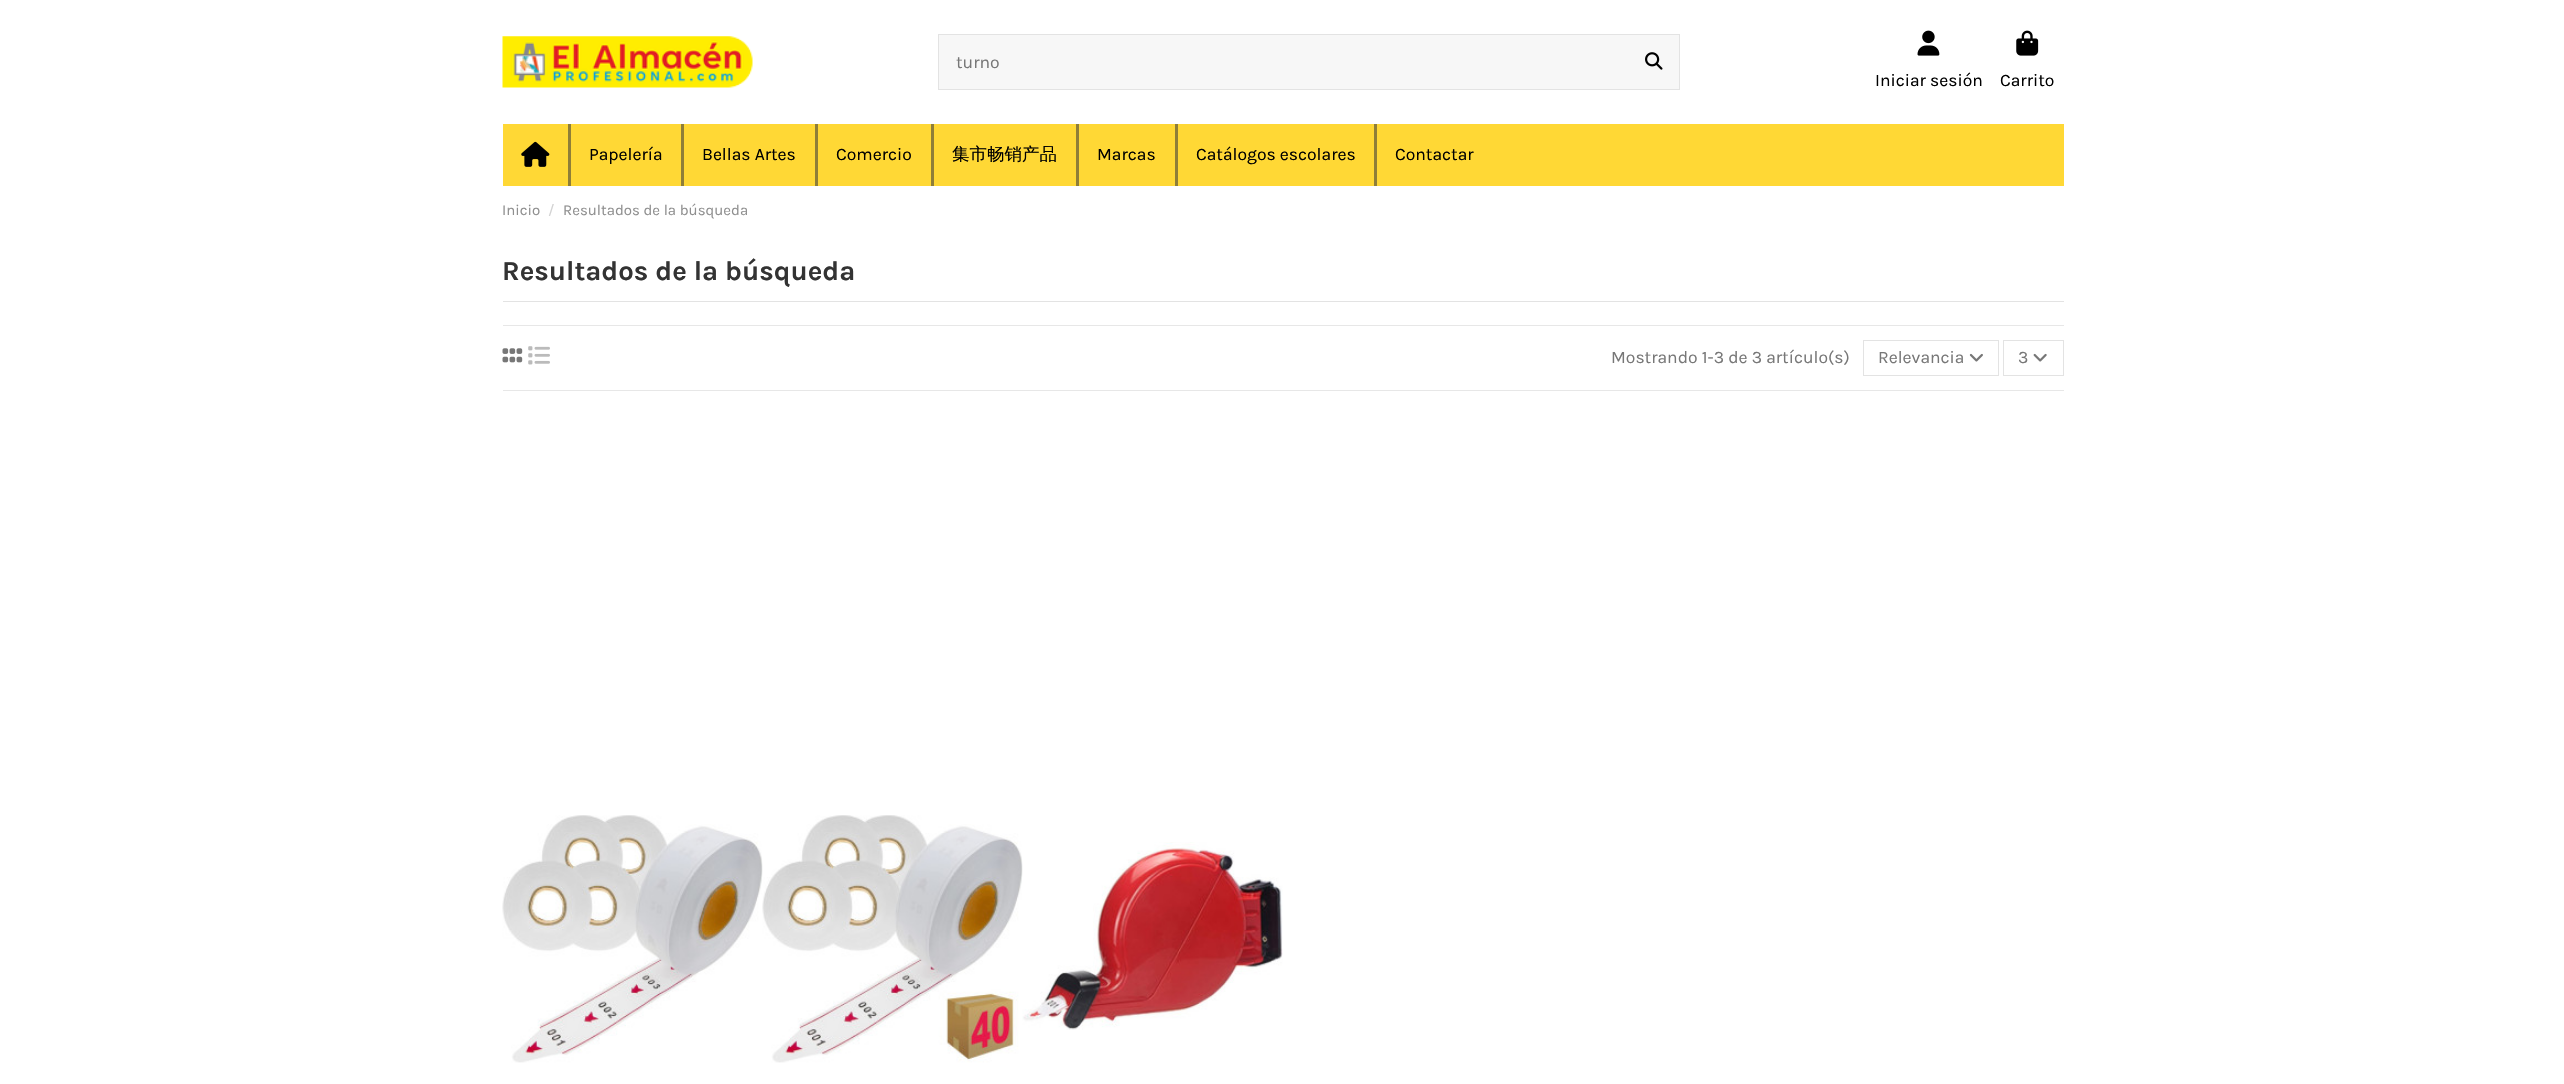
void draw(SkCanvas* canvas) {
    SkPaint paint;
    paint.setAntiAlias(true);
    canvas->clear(0xFFFFFFFF);
    canvas->drawImageRect(SkImages::DeferredFromEncodedData(SkData::MakeFromFileName("img1.png")), SkRect::MakeXYWH(502, 36, 251, 52), SkSamplingOptions());
    paint.setColor(0xFFF7F7F7);
    canvas->drawRect(SkRect::MakeXYWH(938.5f, 34.5f, 741, 55), paint);
    paint.setStyle(SkPaint::kStroke_Style);
    paint.setStrokeWidth(1);
    paint.setColor(0xFFE3E3E3);
    canvas->drawRect(SkRect::MakeXYWH(938.5f, 34.5f, 741, 55), paint);
    SkFont font1(fontMgr->matchFamilyStyle("Karla", SkFontStyle::Normal()), 17.5f);
    font1.setSubpixel(true);
    paint.setStyle(SkPaint::kFill_Style);
    paint.setColor(0xFF777777);
    canvas->drawString("turno", 956, 68, font1, paint);
    canvas->drawImageRect(SkImages::DeferredFromEncodedData(SkData::MakeFromFileName("img2.png")), SkRect::MakeXYWH(1645, 52, 18, 18), SkSamplingOptions());
    canvas->drawImageRect(SkImages::DeferredFromEncodedData(SkData::MakeFromFileName("img3.png")), SkRect::MakeXYWH(1917, 30, 23, 26), SkSamplingOptions());
    paint.setColor(0xFF000000);
    canvas->drawString("Iniciar sesión", 1875, 86, font1, paint);
    canvas->drawImageRect(SkImages::DeferredFromEncodedData(SkData::MakeFromFileName("img4.png")), SkRect::MakeXYWH(2016, 30, 23, 26), SkSamplingOptions());
    canvas->drawString("Carrito", 2000, 86, font1, paint);
    paint.setColor(0xFFFFD835);
    canvas->drawRect(SkRect::MakeXYWH(503, 124, 1561, 62), paint);
    canvas->drawImageRect(SkImages::DeferredFromEncodedData(SkData::MakeFromFileName("img5.png")), SkRect::MakeXYWH(521, 141, 29, 26), SkSamplingOptions());
    paint.setColor(0xFF8F7E38);
    canvas->drawRect(SkRect::MakeXYWH(568, 124, 3, 62), paint);
    paint.setColor(0xFF000000);
    canvas->drawString("Papelería", 589, 160, font1, paint);
    paint.setColor(0xFF8F7E38);
    canvas->drawRect(SkRect::MakeXYWH(681, 124, 3, 62), paint);
    paint.setColor(0xFF000000);
    canvas->drawString("Bellas Artes", 702, 160, font1, paint);
    paint.setColor(0xFF8F7E38);
    canvas->drawRect(SkRect::MakeXYWH(815, 124, 3, 62), paint);
    paint.setColor(0xFF000000);
    canvas->drawString("Comercio", 836, 160, font1, paint);
    paint.setColor(0xFF8F7E38);
    canvas->drawRect(SkRect::MakeXYWH(931, 124, 3, 62), paint);
    SkFont font2(fontMgr->matchFamilyStyle("WenQuanYi Zen Hei", SkFontStyle(500, SkFontStyle::kNormal_Width, SkFontStyle::kUpright_Slant)), 17.5f);
    font2.setSubpixel(true);
    paint.setColor(0xFF000000);
    canvas->drawString("集市畅销产品", 952, 160, font2, paint);
    paint.setColor(0xFF8F7E38);
    canvas->drawRect(SkRect::MakeXYWH(1076, 124, 3, 62), paint);
    paint.setColor(0xFF000000);
    canvas->drawString("Marcas", 1097, 160, font1, paint);
    paint.setColor(0xFF8F7E38);
    canvas->drawRect(SkRect::MakeXYWH(1175, 124, 3, 62), paint);
    paint.setColor(0xFF000000);
    canvas->drawString("Catálogos escolares", 1196, 160, font1, paint);
    paint.setColor(0xFF8F7E38);
    canvas->drawRect(SkRect::MakeXYWH(1374, 124, 3, 62), paint);
    paint.setColor(0xFF000000);
    canvas->drawString("Contactar", 1395, 160, font1, paint);
    SkFont font3(fontMgr->matchFamilyStyle("Karla", SkFontStyle::Normal()), 15);
    font3.setSubpixel(true);
    paint.setColor(0xFF8F8F8F);
    canvas->drawString("Inicio", 502, 215, font3, paint);
    paint.setColor(0xFFD2D2D2);
    canvas->drawString("/", 548, 215, font3, paint);
    paint.setColor(0xFF8F8F8F);
    canvas->drawString("Resultados de la búsqueda", 563, 215, font3, paint);
    paint.setColor(0xFFE3E3E3);
    canvas->drawRect(SkRect::MakeXYWH(503, 301, 1561, 1), paint);
    SkFont font4(fontMgr->matchFamilyStyle("Karla", SkFontStyle::Bold()), 27.5f);
    font4.setSubpixel(true);
    paint.setColor(0xFF333333);
    canvas->drawString("Resultados de la búsqueda", 502, 280, font4, paint);
    paint.setColor(0xFFE7E7E7);
    canvas->drawRect(SkRect::MakeXYWH(503, 325, 1561, 1), paint);
    canvas->drawRect(SkRect::MakeXYWH(503, 390, 1561, 1), paint);
    canvas->drawImageRect(SkImages::DeferredFromEncodedData(SkData::MakeFromFileName("img6.png")), SkRect::MakeXYWH(502, 348, 21, 15), SkSamplingOptions());
    canvas->drawImageRect(SkImages::DeferredFromEncodedData(SkData::MakeFromFileName("img7.png")), SkRect::MakeXYWH(528, 346, 22, 19), SkSamplingOptions());
    paint.setColor(0xFF777777);
    canvas->drawString("Mostrando 1-3 de 3 artículo(s)", 1611, 363, font1, paint);
    paint.setStyle(SkPaint::kStroke_Style);
    paint.setColor(0xFFE3E3E3);
    canvas->drawRect(SkRect::MakeXYWH(1863.5f, 340.5f, 135, 35), paint);
    paint.setStyle(SkPaint::kFill_Style);
    paint.setColor(0xFF777777);
    canvas->drawString("Relevancia", 1878, 363, font1, paint);
    canvas->drawImageRect(SkImages::DeferredFromEncodedData(SkData::MakeFromFileName("img8.png")), SkRect::MakeXYWH(1969, 353, 14, 9), SkSamplingOptions());
    paint.setStyle(SkPaint::kStroke_Style);
    paint.setColor(0xFFE3E3E3);
    canvas->drawRect(SkRect::MakeXYWH(2003.5f, 340.5f, 60, 35), paint);
    paint.setStyle(SkPaint::kFill_Style);
    paint.setColor(0xFF777777);
    canvas->drawString("3", 2018, 363, font1, paint);
    canvas->drawImageRect(SkImages::DeferredFromEncodedData(SkData::MakeFromFileName("img9.png")), SkRect::MakeXYWH(2033, 353, 14, 9), SkSamplingOptions());
    canvas->drawImageRect(SkImages::DeferredFromEncodedData(SkData::MakeFromFileName("img10.png")), SkRect::MakeXYWH(502, 815, 261, 248), SkSamplingOptions());
    canvas->drawImageRect(SkImages::DeferredFromEncodedData(SkData::MakeFromFileName("img11.png")), SkRect::MakeXYWH(762, 815, 261, 248), SkSamplingOptions());
    canvas->drawImageRect(SkImages::DeferredFromEncodedData(SkData::MakeFromFileName("img12.png")), SkRect::MakeXYWH(1022, 842, 261, 188), SkSamplingOptions());
}
